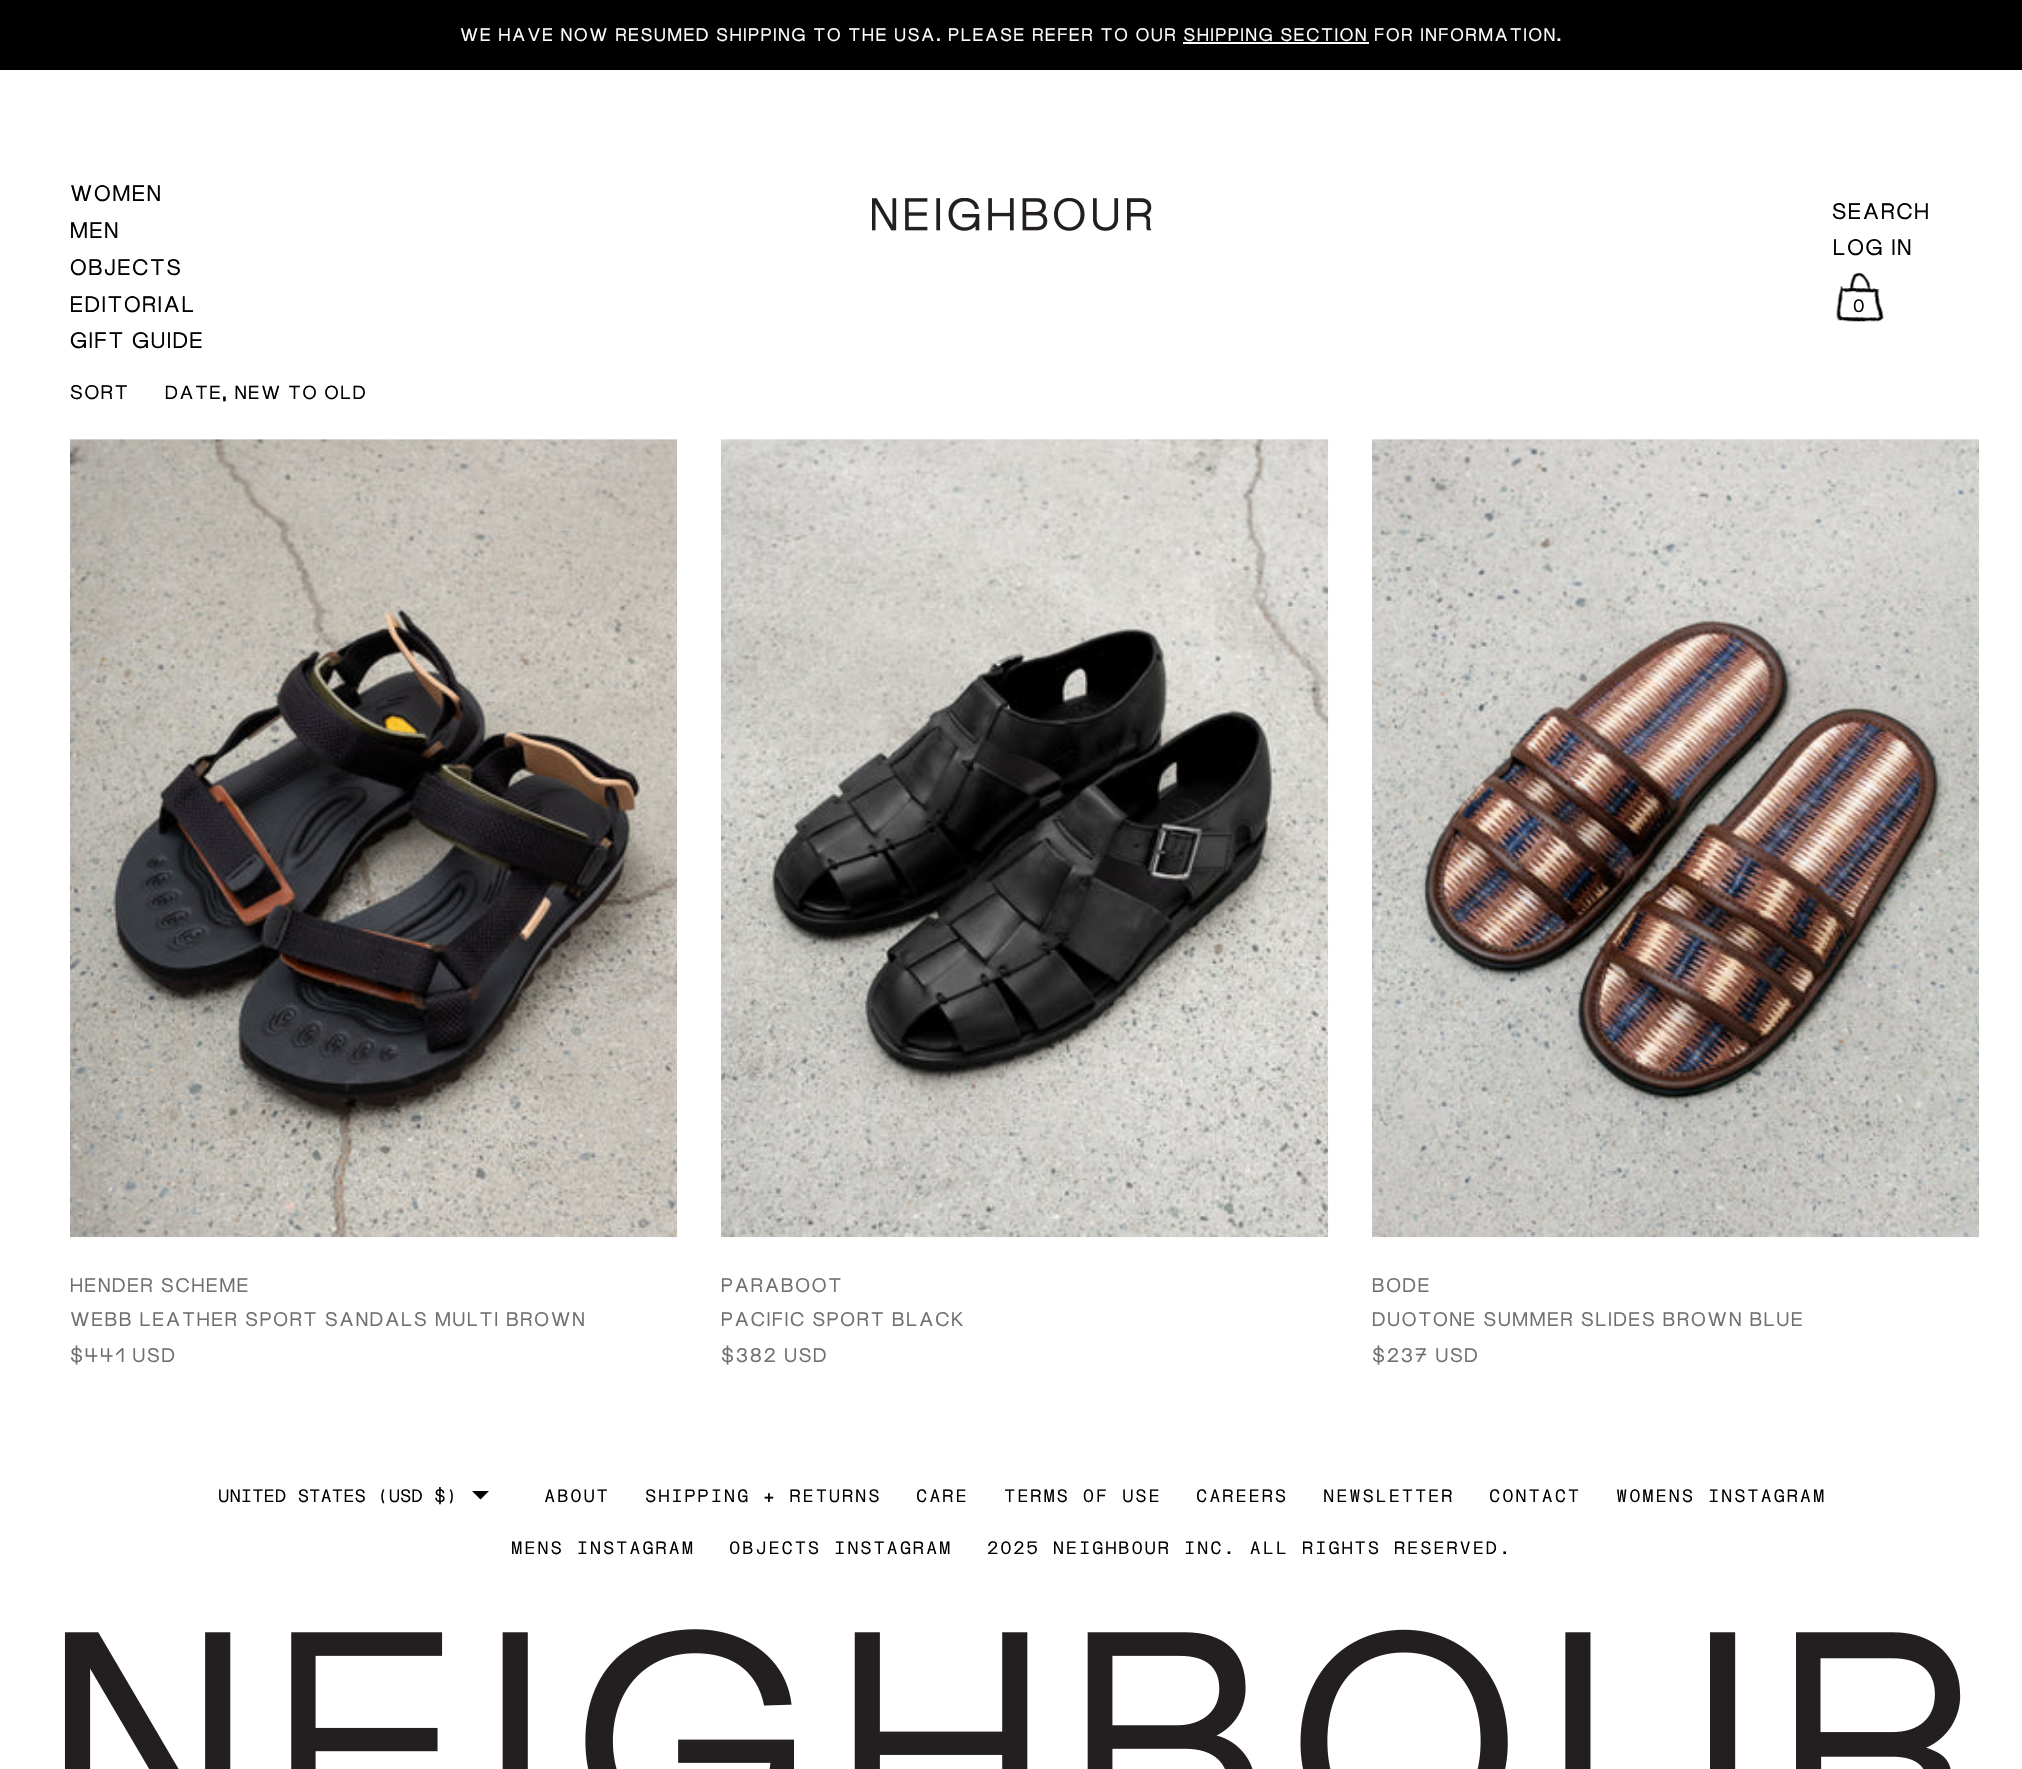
void draw(SkCanvas* canvas) {
    SkPaint paint;
    paint.setAntiAlias(true);
    auto spacedText = [&](const char* s, float x, float y, const SkFont& font, const SkPaint& ink, float letter, float word) {
        std::vector<SkGlyphID> glyphs(font.countText(s, strlen(s), SkTextEncoding::kUTF8));
        std::vector<float> xs(glyphs.size());
        font.textToGlyphs(s, strlen(s), SkTextEncoding::kUTF8, glyphs);
        font.getXPos(glyphs, xs, x);
        float extra = 0;
        for (size_t i = 0; i < glyphs.size(); i++) {
            xs[i] += extra;
            extra += letter + word * (glyphs[i] == font.unicharToGlyph(' '));
        }
        canvas->drawTextBlob(SkTextBlob::MakeFromPosHGlyphs(glyphs, xs, y, font), 0, 0, ink);
    };
    canvas->clear(0xFFFFFFFF);
    paint.setColor(0xFF000000);
    canvas->drawRect(SkRect::MakeXYWH(0, 0, 2022, 70), paint);
    SkFont font1(fontMgr->matchFamilyStyle("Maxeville", SkFontStyle::Normal()), 17.68f);
    font1.setSubpixel(true);
    paint.setColor(0xFFFFFFFF);
    spacedText("WE HAVE NOW RESUMED SHIPPING TO THE USA. PLEASE REFER TO OUR SHIPPING SECTION FOR INFORMATION.", 460, 41, font1, paint, 1.75f, 0);
    canvas->drawRect(SkRect::MakeXYWH(1183, 42, 186, 2), paint);
    SkFont font2(fontMgr->matchFamilyStyle("Maxeville", SkFontStyle::Normal()), 21.75f);
    font2.setSubpixel(true);
    paint.setColor(0xFF000000);
    spacedText("WOMEN", 70, 201, font2, paint, 1.75f, 0);
    spacedText("MEN", 70, 238, font2, paint, 1.75f, 0);
    spacedText("OBJECTS", 70, 275, font2, paint, 1.75f, 0);
    spacedText("EDITORIAL", 70, 312, font2, paint, 1.75f, 0);
    spacedText("GIFT GUIDE", 70, 348, font2, paint, 1.75f, 0);
    canvas->drawImageRect(SkImages::DeferredFromEncodedData(SkData::MakeFromFileName("img1.png")), SkRect::MakeXYWH(872, 198, 280, 33), SkSamplingOptions());
    spacedText("SEARCH", 1832, 219, font2, paint, 1.75f, 0);
    spacedText("LOG IN", 1833, 255, font2, paint, 1.75f, 0);
    canvas->drawImageRect(SkImages::DeferredFromEncodedData(SkData::MakeFromFileName("img2.png")), SkRect::MakeXYWH(1836, 272, 48, 51), SkSamplingOptions());
    SkFont font3(fontMgr->matchFamilyStyle("Maxeville", SkFontStyle::Normal()), 17.5f);
    font3.setSubpixel(true);
    spacedText("0", 1853, 312, font3, paint, 1.75f, 0);
    SkFont font4(fontMgr->matchFamilyStyle("Maxeville", SkFontStyle::Normal()), 19.25f);
    font4.setSubpixel(true);
    spacedText("SORT", 70, 399, font4, paint, 1.75f, 0);
    SkFont font5(fontMgr->matchFamilyStyle("Maxeville", SkFontStyle::Normal()), 18.4f);
    font5.setSubpixel(true);
    spacedText("DATE, NEW TO OLD", 165, 399, font5, paint, 1.75f, 0);
    paint.setColor(0xFFF5F5F5);
    canvas->drawRect(SkRect::MakeXYWH(70, 439, 607, 1), paint);
    canvas->drawImageRect(SkImages::DeferredFromEncodedData(SkData::MakeFromFileName("img3.png")), SkRect::MakeXYWH(70, 439, 608, 799), SkSamplingOptions());
    paint.setColor(0xFF707070);
    spacedText("HENDER SCHEME", 70, 1292, font4, paint, 1.75f, 0);
    spacedText("WEBB LEATHER SPORT SANDALS MULTI BROWN", 70, 1326, font4, paint, 1.75f, 0);
    spacedText("$441 USD", 70, 1362, font4, paint, 1.75f, 0);
    paint.setColor(0xFFF5F5F5);
    canvas->drawRect(SkRect::MakeXYWH(721, 439, 607, 1), paint);
    canvas->drawImageRect(SkImages::DeferredFromEncodedData(SkData::MakeFromFileName("img4.png")), SkRect::MakeXYWH(721, 439, 608, 799), SkSamplingOptions());
    paint.setColor(0xFF707070);
    spacedText("PARABOOT", 721, 1292, font4, paint, 1.75f, 0);
    spacedText("PACIFIC SPORT BLACK", 721, 1326, font4, paint, 1.75f, 0);
    spacedText("$382 USD", 721, 1362, font4, paint, 1.75f, 0);
    paint.setColor(0xFFF5F5F5);
    canvas->drawRect(SkRect::MakeXYWH(1372, 439, 607, 1), paint);
    canvas->drawImageRect(SkImages::DeferredFromEncodedData(SkData::MakeFromFileName("img5.png")), SkRect::MakeXYWH(1372, 439, 608, 799), SkSamplingOptions());
    paint.setColor(0xFF707070);
    spacedText("BODE", 1372, 1292, font4, paint, 1.75f, 0);
    spacedText("DUOTONE SUMMER SLIDES BROWN BLUE", 1372, 1326, font4, paint, 1.75f, 0);
    spacedText("$237 USD", 1372, 1362, font4, paint, 1.75f, 0);
    paint.setColor(0xFF000000);
    canvas->drawPath(SkPathBuilder().moveTo(489, 1491).lineTo(480.5f, 1499.5f).lineTo(472, 1491).close().detach(), paint);
    SkFont font6(fontMgr->matchFamilyStyle("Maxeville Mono", SkFontStyle::Normal()), 17.5f);
    font6.setSubpixel(true);
    canvas->drawString("UNITED STATES (USD $)", 218, 1502, font6, paint);
    spacedText("ABOUT", 544, 1502, font6, paint, 1.75f, 0);
    spacedText("SHIPPING + RETURNS", 645, 1502, font6, paint, 1.75f, 0);
    spacedText("CARE", 916, 1502, font6, paint, 1.75f, 0);
    spacedText("TERMS OF USE", 1004, 1502, font6, paint, 1.75f, 0);
    spacedText("CAREERS", 1196, 1502, font6, paint, 1.75f, 0);
    spacedText("NEWSLETTER", 1323, 1502, font6, paint, 1.75f, 0);
    spacedText("CONTACT", 1489, 1502, font6, paint, 1.75f, 0);
    spacedText("WOMENS INSTAGRAM", 1616, 1502, font6, paint, 1.75f, 0);
    spacedText("MENS INSTAGRAM", 511, 1554, font6, paint, 1.75f, 0);
    spacedText("OBJECTS INSTAGRAM", 729, 1554, font6, paint, 1.75f, 0);
    spacedText("2025 NEIGHBOUR INC. ALL RIGHTS RESERVED.", 987, 1554, font6, paint, 1.75f, 0);
    canvas->drawImageRect(SkImages::DeferredFromEncodedData(SkData::MakeFromFileName("img6.png")), SkRect::MakeXYWH(64, 1629, 1897, 140), SkSamplingOptions());
}
